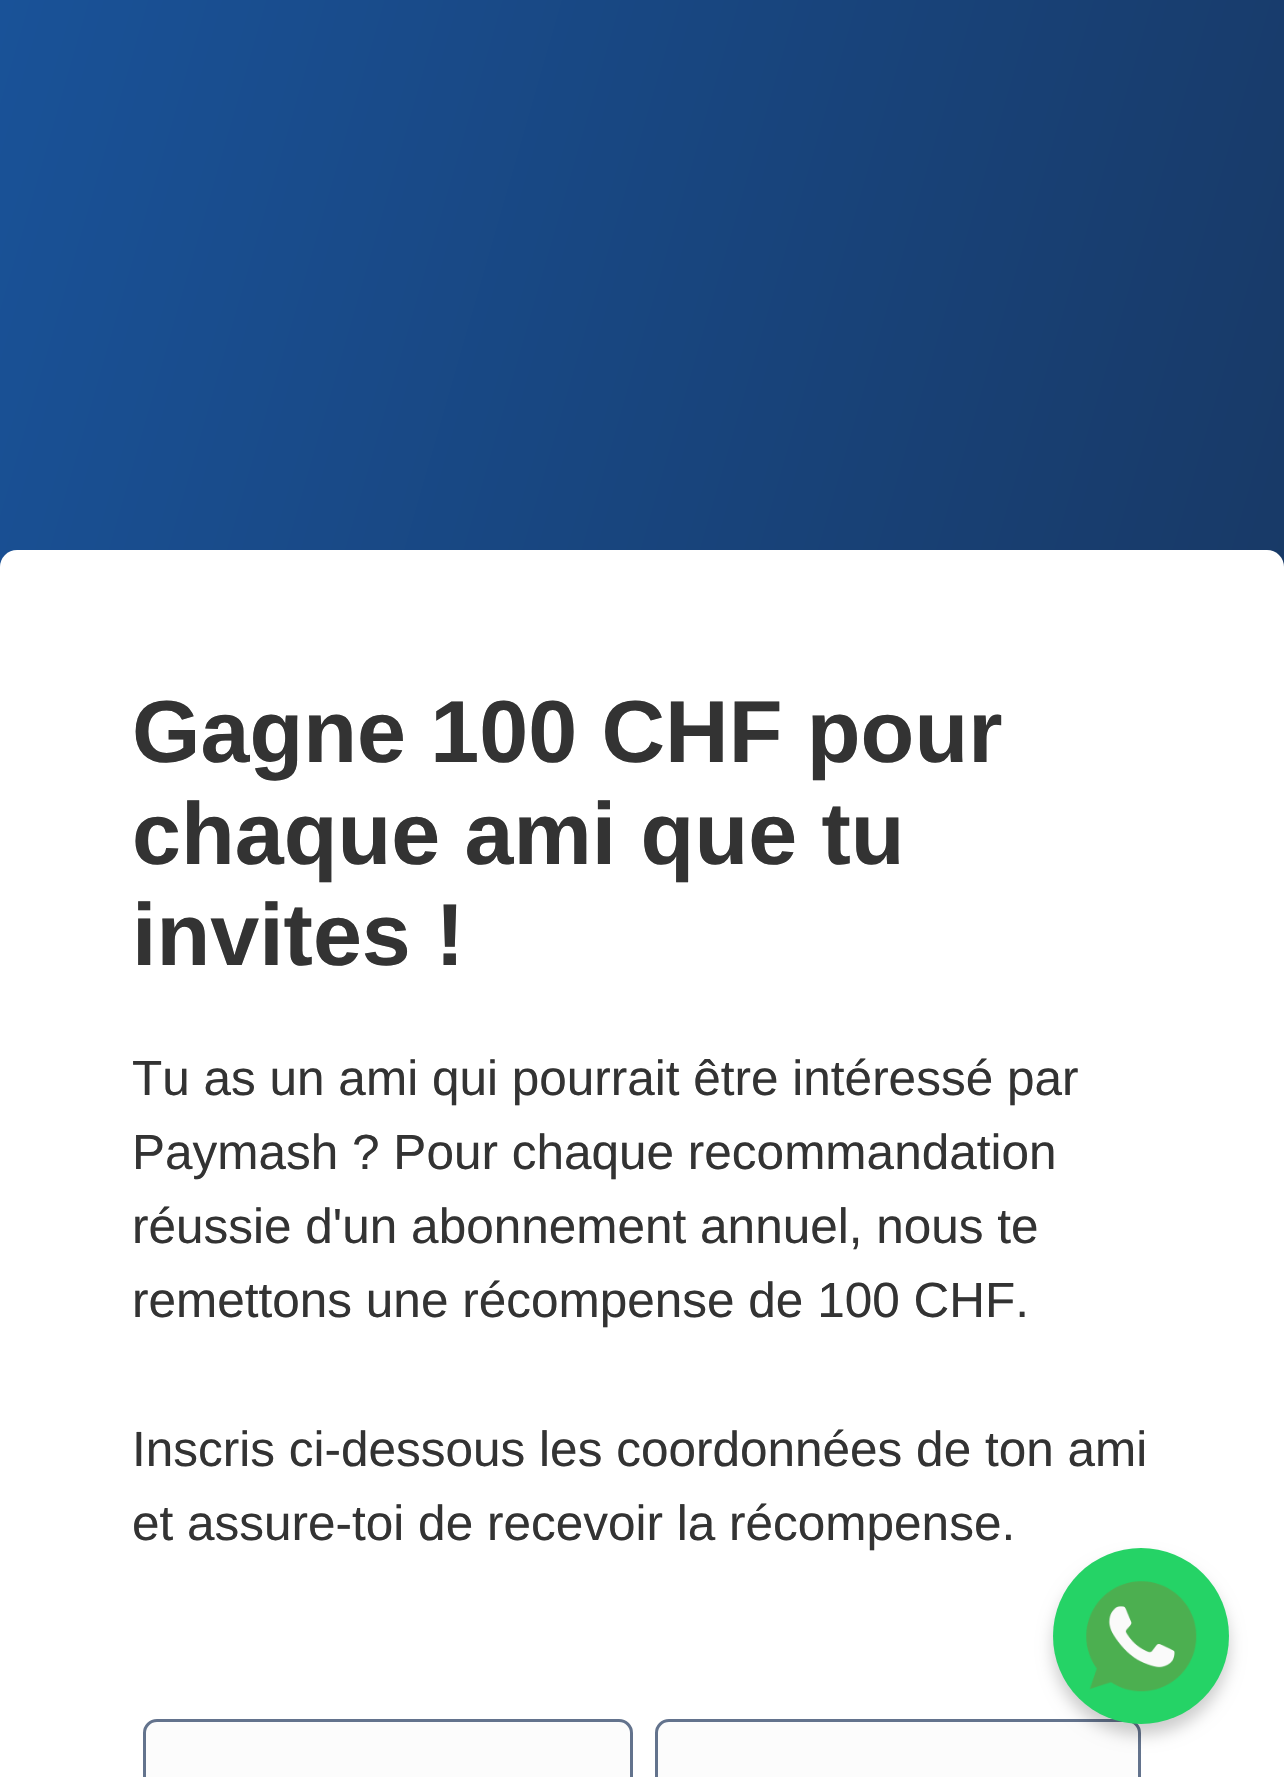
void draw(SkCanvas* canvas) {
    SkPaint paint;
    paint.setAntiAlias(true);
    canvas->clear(0xFFFFFFFF);
    {
        const SkColor colors[] = {0xFF195298, 0xFF172C4C};
        const float stops[] = {0, 1};
        const SkPoint ends[] = {{-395, 1379}, {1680, 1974}};
        paint.setShader(SkGradientShader::MakeLinear(ends, colors, stops, 2, SkTileMode::kClamp));
        paint.setAlpha(255);
    }
    canvas->drawRect(SkRect::MakeXYWH(0, 0, 1284, 567), paint);
    paint.setShader(nullptr);
    paint.setColor(0xFFFFFFFF);
    canvas->drawRoundRect(SkRect::MakeXYWH(0, 550, 1284, 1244), 17, 17, paint);
    SkFont font1(fontMgr->matchFamilyStyle("Liberation Sans", SkFontStyle::Bold()), 88);
    font1.setSubpixel(true);
    paint.setColor(0xFF333333);
    canvas->drawString("Gagne 100 CHF pour", 132, 762, font1, paint);
    canvas->drawString("chaque ami que tu", 132, 864, font1, paint);
    canvas->drawString("invites !", 132, 965, font1, paint);
    SkFont font2(fontMgr->matchFamilyStyle("Liberation Sans", SkFontStyle::Normal()), 49.5f);
    font2.setSubpixel(true);
    canvas->drawString("Tu as un ami qui pourrait être intéressé par", 132, 1095, font2, paint);
    canvas->drawString("Paymash ? Pour chaque recommandation", 132, 1169, font2, paint);
    canvas->drawString("réussie d'un abonnement annuel, nous te", 132, 1243, font2, paint);
    canvas->drawString("remettons une récompense de 100 CHF.", 132, 1317, font2, paint);
    canvas->drawString("Inscris ci-dessous les coordonnées de ton ami", 132, 1466, font2, paint);
    canvas->drawString("et assure-toi de recevoir la récompense.", 132, 1540, font2, paint);
    paint.setColor(0xFFFCFCFC);
    canvas->drawRoundRect(SkRect::MakeXYWH(144.5f, 1720.5f, 487, 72), 12.5f, 12.5f, paint);
    paint.setStyle(SkPaint::kStroke_Style);
    paint.setStrokeWidth(3);
    paint.setColor(0xFF63738D);
    canvas->drawRoundRect(SkRect::MakeXYWH(144.5f, 1720.5f, 487, 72), 12.5f, 12.5f, paint);
    paint.setStyle(SkPaint::kFill_Style);
    paint.setColor(0xFFFCFCFC);
    canvas->drawRoundRect(SkRect::MakeXYWH(656.5f, 1720.5f, 483, 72), 12.5f, 12.5f, paint);
    paint.setStyle(SkPaint::kStroke_Style);
    paint.setColor(0xFF63738D);
    canvas->drawRoundRect(SkRect::MakeXYWH(656.5f, 1720.5f, 483, 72), 12.5f, 12.5f, paint);
    paint.setStyle(SkPaint::kFill_Style);
    paint.setColor(0x33000000);
    paint.setMaskFilter(SkMaskFilter::MakeBlur(kNormal_SkBlurStyle, 8));
    canvas->drawRoundRect(SkRect::MakeXYWH(1053, 1559, 176, 176), 88, 88, paint);
    paint.setMaskFilter(nullptr);
    paint.setColor(0xFF25D366);
    canvas->drawCircle(1141, 1636, 88, paint);
    canvas->drawImageRect(SkImages::DeferredFromEncodedData(SkData::MakeFromFileName("img1.png")), SkRect::MakeXYWH(1086, 1581, 111, 111), SkSamplingOptions());
}
